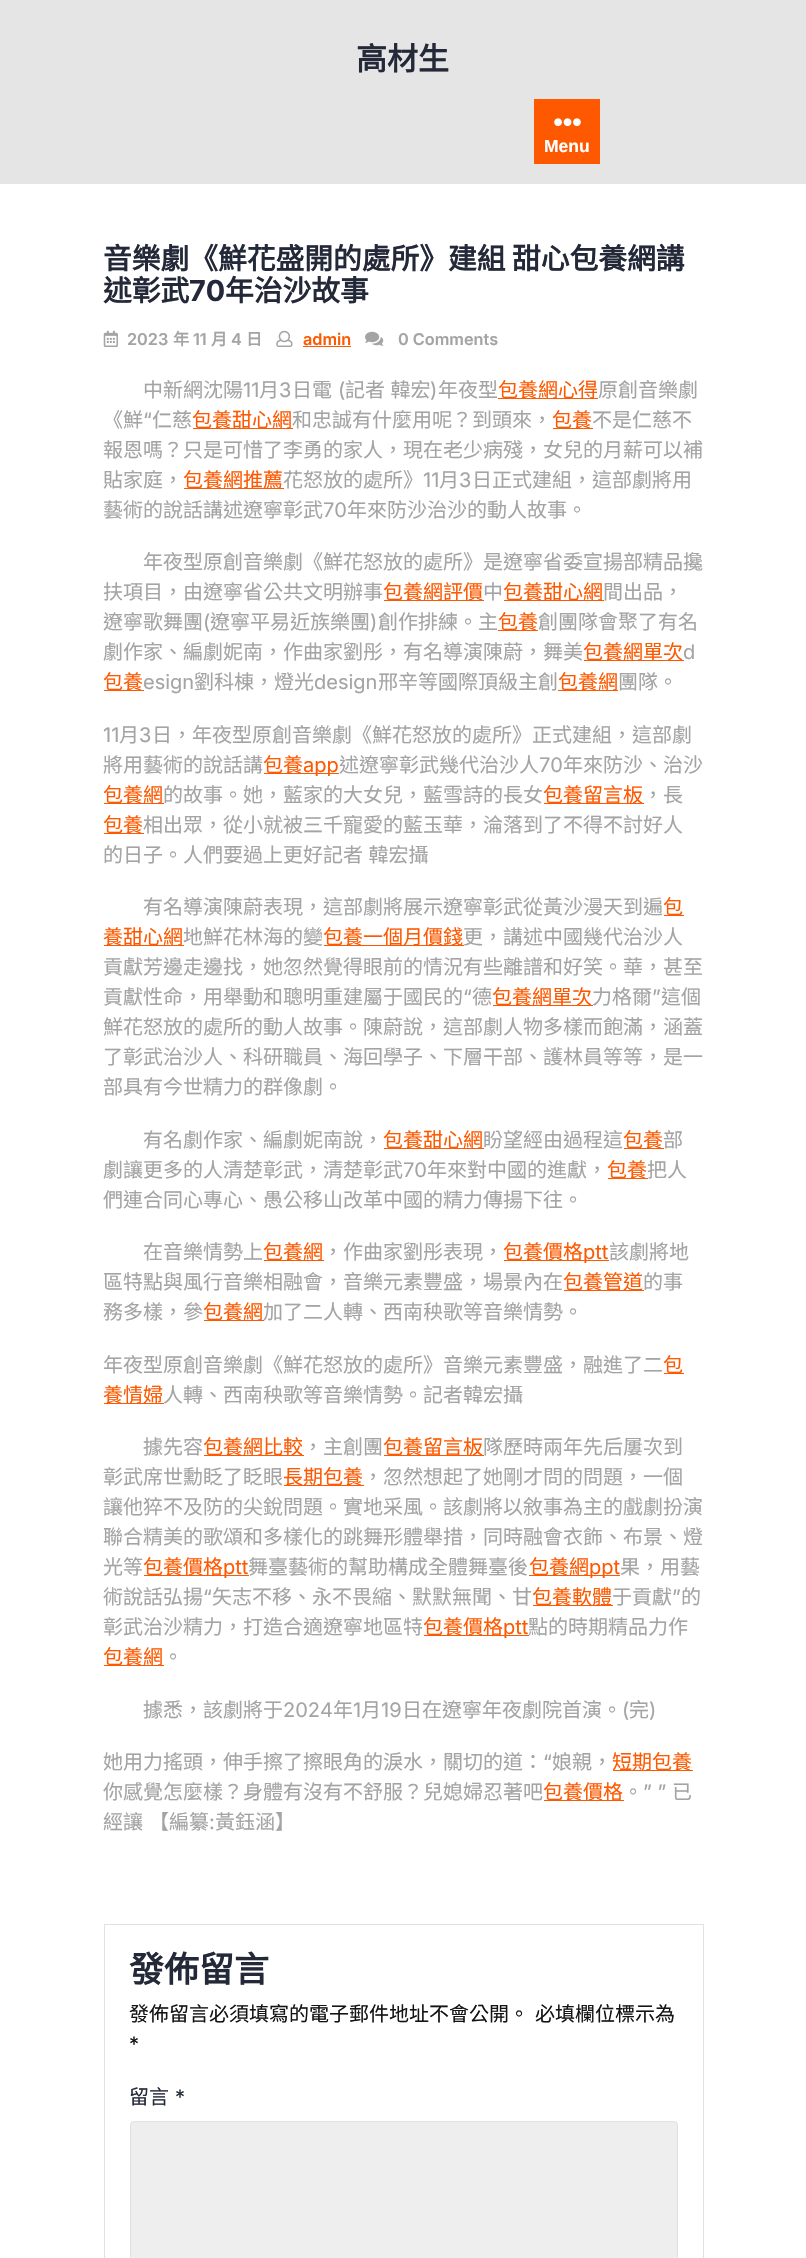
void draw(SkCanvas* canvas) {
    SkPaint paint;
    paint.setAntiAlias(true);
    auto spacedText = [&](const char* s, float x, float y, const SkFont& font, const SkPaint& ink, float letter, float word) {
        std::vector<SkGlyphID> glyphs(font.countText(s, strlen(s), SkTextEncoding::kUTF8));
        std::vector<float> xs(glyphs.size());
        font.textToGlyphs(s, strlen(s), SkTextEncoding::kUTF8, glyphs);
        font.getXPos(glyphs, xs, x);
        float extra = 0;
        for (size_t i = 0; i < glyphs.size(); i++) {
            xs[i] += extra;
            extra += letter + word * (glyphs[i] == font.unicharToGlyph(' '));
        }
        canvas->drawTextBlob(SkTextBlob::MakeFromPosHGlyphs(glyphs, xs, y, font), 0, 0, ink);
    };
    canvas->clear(0xFFFFFFFF);
    paint.setColor(0xFFE5E5E5);
    canvas->drawRect(SkRect::MakeXYWH(0, 0, 806, 184), paint);
    SkFont font1(fontMgr->matchFamilyStyle("Noto Sans CJK TC", SkFontStyle::Bold()), 31);
    font1.setSubpixel(true);
    paint.setColor(0xFF232938);
    canvas->drawString("高材生", 356, 70, font1, paint);
    paint.setColor(0xFFFE5900);
    canvas->drawRect(SkRect::MakeXYWH(534, 99, 66, 65), paint);
    canvas->drawImageRect(SkImages::DeferredFromEncodedData(SkData::MakeFromFileName("img1.png")), SkRect::MakeXYWH(554, 118, 27, 9), SkSamplingOptions());
    SkFont font2(fontMgr->matchFamilyStyle("Liberation Sans", SkFontStyle::Bold()), 17.5f);
    font2.setSubpixel(true);
    paint.setColor(0xFFFFFFFF);
    canvas->drawString("Menu", 544, 152, font2, paint);
    SkFont font3(fontMgr->matchFamilyStyle("Noto Sans CJK TC", SkFontStyle::Bold()), 28.75f);
    font3.setSubpixel(true);
    paint.setColor(0xFF232938);
    canvas->drawString("音樂劇《鮮花盛開的處所》建組 甜心包養網講", 103, 269, font3, paint);
    canvas->drawString("述彰武", 103, 301, font3, paint);
    SkFont font4(fontMgr->matchFamilyStyle("Inter", SkFontStyle::Bold()), 28.75f);
    font4.setSubpixel(true);
    canvas->drawString("70", 189, 301, font4, paint);
    canvas->drawString("年治沙故事", 225, 301, font3, paint);
    canvas->drawImageRect(SkImages::DeferredFromEncodedData(SkData::MakeFromFileName("img2.png")), SkRect::MakeXYWH(103, 330, 15, 17), SkSamplingOptions());
    SkFont font5(fontMgr->matchFamilyStyle("Inter", SkFontStyle(600, SkFontStyle::kNormal_Width, SkFontStyle::kUpright_Slant)), 16.25f);
    font5.setSubpixel(true);
    paint.setColor(0xFFA4A4A4);
    canvas->drawString("2023", 127, 345, font5, paint);
    SkFont font6(fontMgr->matchFamilyStyle("Noto Sans CJK TC", SkFontStyle::Bold()), 16.25f);
    font6.setSubpixel(true);
    canvas->drawString("年", 173, 345, font6, paint);
    canvas->drawString("11", 193, 345, font5, paint);
    canvas->drawString("月", 211, 345, font6, paint);
    canvas->drawString("4", 231, 345, font5, paint);
    canvas->drawString("日", 246, 345, font6, paint);
    canvas->drawImageRect(SkImages::DeferredFromEncodedData(SkData::MakeFromFileName("img3.png")), SkRect::MakeXYWH(276, 330, 17, 17), SkSamplingOptions());
    paint.setColor(0xFFFE5900);
    canvas->drawString("admin", 303, 345, font5, paint);
    canvas->drawRect(SkRect::MakeXYWH(303, 346, 48, 1), paint);
    canvas->drawImageRect(SkImages::DeferredFromEncodedData(SkData::MakeFromFileName("img4.png")), SkRect::MakeXYWH(365, 331, 19, 15), SkSamplingOptions());
    paint.setColor(0xFFA4A4A4);
    canvas->drawString("0 Comments", 398, 345, font5, paint);
    SkFont font7(fontMgr->matchFamilyStyle("Noto Sans CJK TC", SkFontStyle::Normal()), 20);
    font7.setSubpixel(true);
    canvas->drawString("中新網沈陽", 143, 397, font7, paint);
    SkFont font8(fontMgr->matchFamilyStyle("Inter", SkFontStyle::Normal()), 20);
    font8.setSubpixel(true);
    canvas->drawString("11", 243, 397, font8, paint);
    canvas->drawString("月", 259, 397, font7, paint);
    canvas->drawString("3", 279, 397, font8, paint);
    canvas->drawString("日電", 292, 397, font7, paint);
    canvas->drawString("(", 338, 397, font8, paint);
    spacedText("記者 韓宏", 345, 397, font7, paint, 0, 1);
    canvas->drawString(")", 430, 397, font8, paint);
    canvas->drawString("年夜型", 438, 397, font7, paint);
    paint.setColor(0xFFFE5900);
    canvas->drawRect(SkRect::MakeXYWH(498, 398, 100, 1), paint);
    canvas->drawString("包養網心得", 498, 397, font7, paint);
    paint.setColor(0xFFA4A4A4);
    canvas->drawString("原創音樂劇", 598, 397, font7, paint);
    canvas->drawString("《鮮", 103, 427, font7, paint);
    canvas->drawString("“", 143, 427, font8, paint);
    canvas->drawString("仁慈", 152, 427, font7, paint);
    paint.setColor(0xFFFE5900);
    canvas->drawRect(SkRect::MakeXYWH(193, 428, 100, 1), paint);
    canvas->drawString("包養甜心網", 192, 427, font7, paint);
    paint.setColor(0xFFA4A4A4);
    canvas->drawString("和忠誠有什麼用呢？到頭來，", 292, 427, font7, paint);
    paint.setColor(0xFFFE5900);
    canvas->drawRect(SkRect::MakeXYWH(553, 428, 40, 1), paint);
    canvas->drawString("包養", 552, 427, font7, paint);
    paint.setColor(0xFFA4A4A4);
    canvas->drawString("不是仁慈不", 592, 427, font7, paint);
    canvas->drawString("報恩嗎？只是可惜了李勇的家人，現在老少病殘，女兒的月薪可以補", 103, 457, font7, paint);
    canvas->drawString("貼家庭，", 103, 487, font7, paint);
    paint.setColor(0xFFFE5900);
    canvas->drawRect(SkRect::MakeXYWH(184, 488, 100, 1), paint);
    canvas->drawString("包養網推薦", 183, 487, font7, paint);
    paint.setColor(0xFFA4A4A4);
    canvas->drawString("花怒放的處所》", 283, 487, font7, paint);
    canvas->drawString("11", 423, 487, font8, paint);
    canvas->drawString("月", 439, 487, font7, paint);
    canvas->drawString("3", 459, 487, font8, paint);
    canvas->drawString("日正式建組，這部劇將用", 472, 487, font7, paint);
    canvas->drawString("藝術的說話講述遼寧彰武", 103, 517, font7, paint);
    canvas->drawString("70", 323, 517, font8, paint);
    canvas->drawString("年來防沙治沙的動人故事。", 347, 517, font7, paint);
    canvas->drawString("年夜型原創音樂劇《鮮花怒放的處所》是遼寧省委宣揚部精品攙", 143, 569, font7, paint);
    canvas->drawString("扶項目，由遼寧省公共文明辦事", 103, 599, font7, paint);
    paint.setColor(0xFFFE5900);
    canvas->drawRect(SkRect::MakeXYWH(384, 600, 100, 1), paint);
    canvas->drawString("包養網評價", 383, 599, font7, paint);
    paint.setColor(0xFFA4A4A4);
    canvas->drawString("中", 483, 599, font7, paint);
    paint.setColor(0xFFFE5900);
    canvas->drawRect(SkRect::MakeXYWH(504, 600, 100, 1), paint);
    canvas->drawString("包養甜心網", 503, 599, font7, paint);
    paint.setColor(0xFFA4A4A4);
    canvas->drawString("間出品，", 603, 599, font7, paint);
    canvas->drawString("遼寧歌舞團", 103, 629, font7, paint);
    canvas->drawString("(", 203, 629, font8, paint);
    canvas->drawString("遼寧平易近族樂團", 210, 629, font7, paint);
    canvas->drawString(")", 370, 629, font8, paint);
    canvas->drawString("創作排練。主", 378, 629, font7, paint);
    paint.setColor(0xFFFE5900);
    canvas->drawRect(SkRect::MakeXYWH(498, 630, 40, 1), paint);
    canvas->drawString("包養", 498, 629, font7, paint);
    paint.setColor(0xFFA4A4A4);
    canvas->drawString("創團隊會聚了有名", 538, 629, font7, paint);
    canvas->drawString("劇作家、編劇妮南，作曲家劉彤，有名導演陳蔚，舞美", 103, 659, font7, paint);
    paint.setColor(0xFFFE5900);
    canvas->drawRect(SkRect::MakeXYWH(584, 660, 100, 1), paint);
    canvas->drawString("包養網單次", 583, 659, font7, paint);
    paint.setColor(0xFFA4A4A4);
    canvas->drawString("d", 683, 659, font8, paint);
    paint.setColor(0xFFFE5900);
    canvas->drawRect(SkRect::MakeXYWH(104, 690, 40, 1), paint);
    canvas->drawString("包養", 103, 689, font7, paint);
    paint.setColor(0xFFA4A4A4);
    canvas->drawString("esign", 143, 689, font8, paint);
    canvas->drawString("劉科棟，燈光", 194, 689, font7, paint);
    canvas->drawString("design", 314, 689, font8, paint);
    canvas->drawString("邢辛等國際頂級主創", 378, 689, font7, paint);
    paint.setColor(0xFFFE5900);
    canvas->drawRect(SkRect::MakeXYWH(558, 690, 60, 1), paint);
    canvas->drawString("包養網", 558, 689, font7, paint);
    paint.setColor(0xFFA4A4A4);
    canvas->drawString("團隊。", 618, 689, font7, paint);
    canvas->drawString("11", 103, 742, font8, paint);
    canvas->drawString("月", 119, 742, font7, paint);
    canvas->drawString("3", 139, 742, font8, paint);
    canvas->drawString("日，年夜型原創音樂劇《鮮花怒放的處所》正式建組，這部劇", 152, 742, font7, paint);
    canvas->drawString("將用藝術的說話講", 103, 772, font7, paint);
    paint.setColor(0xFFFE5900);
    canvas->drawRect(SkRect::MakeXYWH(264, 773, 75, 1), paint);
    canvas->drawString("包養", 263, 772, font7, paint);
    canvas->drawString("app", 303, 772, font8, paint);
    paint.setColor(0xFFA4A4A4);
    canvas->drawString("述遼寧彰武幾代治沙人", 339, 772, font7, paint);
    canvas->drawString("70", 539, 772, font8, paint);
    canvas->drawString("年來防沙、治沙", 563, 772, font7, paint);
    paint.setColor(0xFFFE5900);
    canvas->drawRect(SkRect::MakeXYWH(104, 803, 60, 1), paint);
    canvas->drawString("包養網", 103, 802, font7, paint);
    paint.setColor(0xFFA4A4A4);
    canvas->drawString("的故事。她，藍家的大女兒，藍雪詩的長女", 163, 802, font7, paint);
    paint.setColor(0xFFFE5900);
    canvas->drawRect(SkRect::MakeXYWH(544, 803, 100, 1), paint);
    canvas->drawString("包養留言板", 543, 802, font7, paint);
    paint.setColor(0xFFA4A4A4);
    canvas->drawString("，長", 643, 802, font7, paint);
    paint.setColor(0xFFFE5900);
    canvas->drawRect(SkRect::MakeXYWH(104, 833, 40, 1), paint);
    canvas->drawString("包養", 103, 832, font7, paint);
    paint.setColor(0xFFA4A4A4);
    canvas->drawString("相出眾，從小就被三千寵愛的藍玉華，淪落到了不得不討好人", 143, 832, font7, paint);
    spacedText("的日子。人們要過上更好記者 韓宏攝", 103, 862, font7, paint, 0, 1);
    canvas->drawString("有名導演陳蔚表現，這部劇將展示遼寧彰武從黃沙漫天到遍", 143, 914, font7, paint);
    paint.setColor(0xFFFE5900);
    canvas->drawRect(SkRect::MakeXYWH(664, 915, 20, 1), paint);
    canvas->drawString("包", 663, 914, font7, paint);
    canvas->drawRect(SkRect::MakeXYWH(104, 945, 80, 1), paint);
    canvas->drawString("養甜心網", 103, 944, font7, paint);
    paint.setColor(0xFFA4A4A4);
    canvas->drawString("地鮮花林海的變", 183, 944, font7, paint);
    paint.setColor(0xFFFE5900);
    canvas->drawRect(SkRect::MakeXYWH(324, 945, 140, 1), paint);
    canvas->drawString("包養一個月價錢", 323, 944, font7, paint);
    paint.setColor(0xFFA4A4A4);
    canvas->drawString("更，講述中國幾代治沙人", 463, 944, font7, paint);
    canvas->drawString("貢獻芳邊走邊找，她忽然覺得眼前的情況有些離譜和好笑。華，甚至", 103, 974, font7, paint);
    canvas->drawString("貢獻性命，用舉動和聰明重建屬于國民的", 103, 1004, font7, paint);
    canvas->drawString("“", 463, 1004, font8, paint);
    canvas->drawString("德", 472, 1004, font7, paint);
    paint.setColor(0xFFFE5900);
    canvas->drawRect(SkRect::MakeXYWH(493, 1005, 100, 1), paint);
    canvas->drawString("包養網單次", 492, 1004, font7, paint);
    paint.setColor(0xFFA4A4A4);
    canvas->drawString("力格爾", 592, 1004, font7, paint);
    canvas->drawString("”", 652, 1004, font8, paint);
    canvas->drawString("這個", 661, 1004, font7, paint);
    canvas->drawString("鮮花怒放的處所的動人故事。陳蔚說，這部劇人物多樣而飽滿，涵蓋", 103, 1034, font7, paint);
    canvas->drawString("了彰武治沙人、科研職員、海回學子、下層干部、護林員等等，是一", 103, 1064, font7, paint);
    canvas->drawString("部具有今世精力的群像劇。", 103, 1094, font7, paint);
    canvas->drawString("有名劇作家、編劇妮南說，", 143, 1147, font7, paint);
    paint.setColor(0xFFFE5900);
    canvas->drawRect(SkRect::MakeXYWH(384, 1148, 100, 1), paint);
    canvas->drawString("包養甜心網", 383, 1147, font7, paint);
    paint.setColor(0xFFA4A4A4);
    canvas->drawString("盼望經由過程這", 483, 1147, font7, paint);
    paint.setColor(0xFFFE5900);
    canvas->drawRect(SkRect::MakeXYWH(624, 1148, 40, 1), paint);
    canvas->drawString("包養", 623, 1147, font7, paint);
    paint.setColor(0xFFA4A4A4);
    canvas->drawString("部", 663, 1147, font7, paint);
    canvas->drawString("劇讓更多的人清楚彰武，清楚彰武", 103, 1177, font7, paint);
    canvas->drawString("70", 403, 1177, font8, paint);
    canvas->drawString("年來對中國的進獻，", 427, 1177, font7, paint);
    paint.setColor(0xFFFE5900);
    canvas->drawRect(SkRect::MakeXYWH(608, 1178, 40, 1), paint);
    canvas->drawString("包養", 607, 1177, font7, paint);
    paint.setColor(0xFFA4A4A4);
    canvas->drawString("把人", 647, 1177, font7, paint);
    canvas->drawString("們連合同心專心、愚公移山改革中國的精力傳揚下往。", 103, 1207, font7, paint);
    canvas->drawString("在音樂情勢上", 143, 1259, font7, paint);
    paint.setColor(0xFFFE5900);
    canvas->drawRect(SkRect::MakeXYWH(264, 1260, 60, 1), paint);
    canvas->drawString("包養網", 263, 1259, font7, paint);
    paint.setColor(0xFFA4A4A4);
    canvas->drawString("，作曲家劉彤表現，", 323, 1259, font7, paint);
    paint.setColor(0xFFFE5900);
    canvas->drawRect(SkRect::MakeXYWH(504, 1260, 105, 1), paint);
    canvas->drawString("包養價格", 503, 1259, font7, paint);
    canvas->drawString("ptt", 583, 1259, font8, paint);
    paint.setColor(0xFFA4A4A4);
    canvas->drawString("該劇將地", 609, 1259, font7, paint);
    canvas->drawString("區特點與風行音樂相融會，音樂元素豐盛，場景內在", 103, 1289, font7, paint);
    paint.setColor(0xFFFE5900);
    canvas->drawRect(SkRect::MakeXYWH(564, 1290, 80, 1), paint);
    canvas->drawString("包養管道", 563, 1289, font7, paint);
    paint.setColor(0xFFA4A4A4);
    canvas->drawString("的事", 643, 1289, font7, paint);
    canvas->drawString("務多樣，參", 103, 1319, font7, paint);
    paint.setColor(0xFFFE5900);
    canvas->drawRect(SkRect::MakeXYWH(204, 1320, 60, 1), paint);
    canvas->drawString("包養網", 203, 1319, font7, paint);
    paint.setColor(0xFFA4A4A4);
    canvas->drawString("加了二人轉、西南秧歌等音樂情勢。", 263, 1319, font7, paint);
    canvas->drawString("年夜型原創音樂劇《鮮花怒放的處所》音樂元素豐盛，融進了二", 103, 1372, font7, paint);
    paint.setColor(0xFFFE5900);
    canvas->drawRect(SkRect::MakeXYWH(664, 1373, 20, 1), paint);
    canvas->drawString("包", 663, 1372, font7, paint);
    canvas->drawRect(SkRect::MakeXYWH(104, 1403, 60, 1), paint);
    canvas->drawString("養情婦", 103, 1402, font7, paint);
    paint.setColor(0xFFA4A4A4);
    canvas->drawString("人轉、西南秧歌等音樂情勢。記者韓宏攝", 163, 1402, font7, paint);
    canvas->drawString("據先容", 143, 1454, font7, paint);
    paint.setColor(0xFFFE5900);
    canvas->drawRect(SkRect::MakeXYWH(204, 1455, 100, 1), paint);
    canvas->drawString("包養網比較", 203, 1454, font7, paint);
    paint.setColor(0xFFA4A4A4);
    canvas->drawString("，主創團", 303, 1454, font7, paint);
    paint.setColor(0xFFFE5900);
    canvas->drawRect(SkRect::MakeXYWH(384, 1455, 100, 1), paint);
    canvas->drawString("包養留言板", 383, 1454, font7, paint);
    paint.setColor(0xFFA4A4A4);
    canvas->drawString("隊歷時兩年先后屢次到", 483, 1454, font7, paint);
    canvas->drawString("彰武席世勳眨了眨眼", 103, 1484, font7, paint);
    paint.setColor(0xFFFE5900);
    canvas->drawRect(SkRect::MakeXYWH(284, 1485, 80, 1), paint);
    canvas->drawString("長期包養", 283, 1484, font7, paint);
    paint.setColor(0xFFA4A4A4);
    canvas->drawString("，忽然想起了她剛才問的問題，一個", 363, 1484, font7, paint);
    canvas->drawString("讓他猝不及防的尖銳問題。實地采風。該劇將以敘事為主的戲劇扮演", 103, 1514, font7, paint);
    canvas->drawString("聯合精美的歌頌和多樣化的跳舞形體舉措，同時融會衣飾、布景、燈", 103, 1544, font7, paint);
    canvas->drawString("光等", 103, 1574, font7, paint);
    paint.setColor(0xFFFE5900);
    canvas->drawRect(SkRect::MakeXYWH(144, 1575, 105, 1), paint);
    canvas->drawString("包養價格", 143, 1574, font7, paint);
    canvas->drawString("ptt", 223, 1574, font8, paint);
    paint.setColor(0xFFA4A4A4);
    canvas->drawString("舞臺藝術的幫助構成全體舞臺後", 248, 1574, font7, paint);
    paint.setColor(0xFFFE5900);
    canvas->drawRect(SkRect::MakeXYWH(529, 1575, 91, 1), paint);
    canvas->drawString("包養網", 529, 1574, font7, paint);
    canvas->drawString("ppt", 589, 1574, font8, paint);
    paint.setColor(0xFFA4A4A4);
    canvas->drawString("果，用藝", 620, 1574, font7, paint);
    canvas->drawString("術說話弘揚", 103, 1604, font7, paint);
    canvas->drawString("“", 203, 1604, font8, paint);
    canvas->drawString("矢志不移、永不畏縮、默默無聞、甘", 212, 1604, font7, paint);
    paint.setColor(0xFFFE5900);
    canvas->drawRect(SkRect::MakeXYWH(533, 1605, 80, 1), paint);
    canvas->drawString("包養軟體", 532, 1604, font7, paint);
    paint.setColor(0xFFA4A4A4);
    canvas->drawString("于貢獻", 612, 1604, font7, paint);
    canvas->drawString("”", 672, 1604, font8, paint);
    canvas->drawString("的", 681, 1604, font7, paint);
    canvas->drawString("彰武治沙精力，打造合適遼寧地區特", 103, 1634, font7, paint);
    paint.setColor(0xFFFE5900);
    canvas->drawRect(SkRect::MakeXYWH(424, 1635, 105, 1), paint);
    canvas->drawString("包養價格", 423, 1634, font7, paint);
    canvas->drawString("ptt", 503, 1634, font8, paint);
    paint.setColor(0xFFA4A4A4);
    canvas->drawString("點的時期精品力作", 528, 1634, font7, paint);
    paint.setColor(0xFFFE5900);
    canvas->drawRect(SkRect::MakeXYWH(104, 1665, 60, 1), paint);
    canvas->drawString("包養網", 103, 1664, font7, paint);
    paint.setColor(0xFFA4A4A4);
    canvas->drawString("。", 163, 1664, font7, paint);
    canvas->drawString("據悉，該劇將于", 143, 1717, font7, paint);
    canvas->drawString("2024", 283, 1717, font8, paint);
    canvas->drawString("年", 333, 1717, font7, paint);
    canvas->drawString("1", 353, 1717, font8, paint);
    canvas->drawString("月", 361, 1717, font7, paint);
    canvas->drawString("19", 381, 1717, font8, paint);
    canvas->drawString("日在遼寧年夜劇院首演。", 402, 1717, font7, paint);
    canvas->drawString("(", 622, 1717, font8, paint);
    canvas->drawString("完", 629, 1717, font7, paint);
    canvas->drawString(")", 649, 1717, font8, paint);
    canvas->drawString("她用力搖頭，伸手擦了擦眼角的淚水，關切的道：", 103, 1769, font7, paint);
    canvas->drawString("“", 543, 1769, font8, paint);
    canvas->drawString("娘親，", 552, 1769, font7, paint);
    paint.setColor(0xFFFE5900);
    canvas->drawRect(SkRect::MakeXYWH(613, 1770, 80, 1), paint);
    canvas->drawString("短期包養", 612, 1769, font7, paint);
    paint.setColor(0xFFA4A4A4);
    canvas->drawString("你感覺怎麼樣？身體有沒有不舒服？兒媳婦忍著吧", 103, 1799, font7, paint);
    paint.setColor(0xFFFE5900);
    canvas->drawRect(SkRect::MakeXYWH(544, 1800, 80, 1), paint);
    canvas->drawString("包養價格", 543, 1799, font7, paint);
    paint.setColor(0xFFA4A4A4);
    canvas->drawString("” ”", 643, 1799, font8, paint);
    canvas->drawString("已", 672, 1799, font7, paint);
    canvas->drawString("。", 623, 1799, font7, paint);
    canvas->drawString("經讓", 103, 1829, font7, paint);
    canvas->drawString("【編纂", 149, 1829, font7, paint);
    canvas->drawString(":", 209, 1829, font8, paint);
    canvas->drawString("黃鈺涵】", 215, 1829, font7, paint);
    paint.setStyle(SkPaint::kStroke_Style);
    paint.setStrokeWidth(1);
    paint.setColor(0xFFE1E1E1);
    canvas->drawRect(SkRect::MakeXYWH(104.5f, 1924.5f, 599, 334), paint);
    SkFont font9(fontMgr->matchFamilyStyle("Noto Sans CJK TC", SkFontStyle::Bold()), 35);
    font9.setSubpixel(true);
    paint.setStyle(SkPaint::kFill_Style);
    paint.setColor(0xFF232938);
    canvas->drawString("發佈留言", 129, 1982, font9, paint);
    paint.setColor(0xFF141414);
    canvas->drawString("發佈留言必須填寫的電子郵件地址不會公開。", 129, 2021, font7, paint);
    canvas->drawString("必填欄位標示為", 535, 2021, font7, paint);
    canvas->drawString("*", 129, 2051, font8, paint);
    paint.setColor(0xFF232938);
    canvas->drawString("留言", 129, 2104, font7, paint);
    canvas->drawString("*", 175, 2104, font8, paint);
    paint.setColor(0xFFEEEEEE);
    canvas->drawRoundRect(SkRect::MakeXYWH(130.5f, 2121.5f, 547, 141), 3.5f, 3.5f, paint);
    paint.setStyle(SkPaint::kStroke_Style);
    paint.setColor(0xFFE1E1E1);
    canvas->drawRoundRect(SkRect::MakeXYWH(130.5f, 2121.5f, 547, 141), 3.5f, 3.5f, paint);
}
